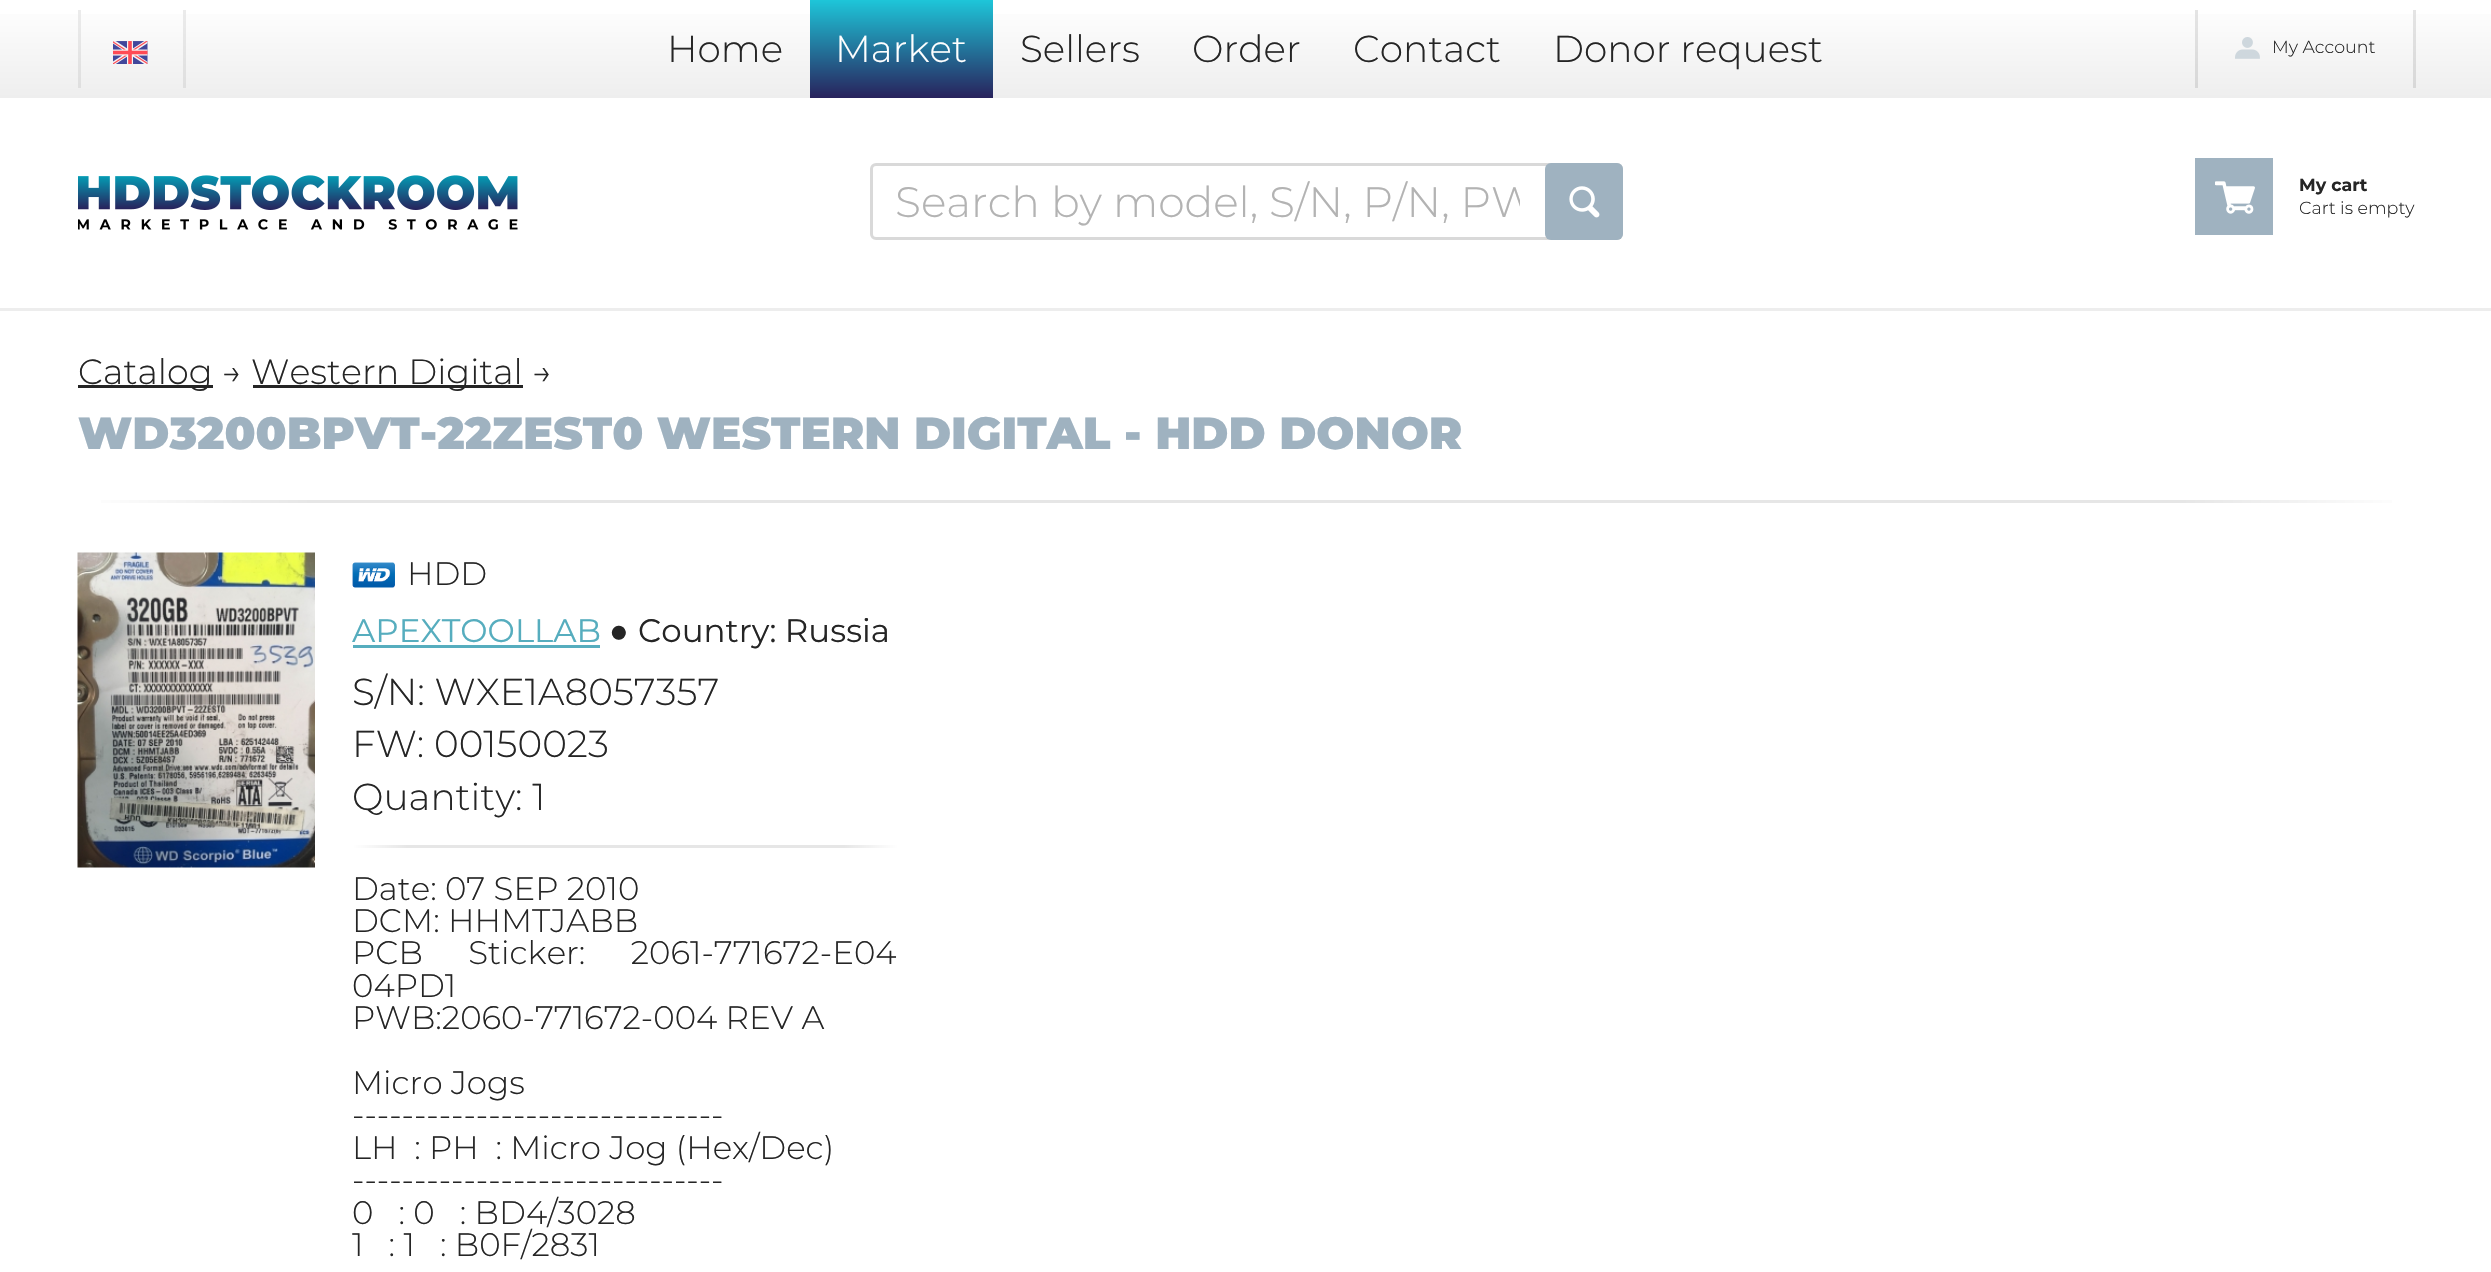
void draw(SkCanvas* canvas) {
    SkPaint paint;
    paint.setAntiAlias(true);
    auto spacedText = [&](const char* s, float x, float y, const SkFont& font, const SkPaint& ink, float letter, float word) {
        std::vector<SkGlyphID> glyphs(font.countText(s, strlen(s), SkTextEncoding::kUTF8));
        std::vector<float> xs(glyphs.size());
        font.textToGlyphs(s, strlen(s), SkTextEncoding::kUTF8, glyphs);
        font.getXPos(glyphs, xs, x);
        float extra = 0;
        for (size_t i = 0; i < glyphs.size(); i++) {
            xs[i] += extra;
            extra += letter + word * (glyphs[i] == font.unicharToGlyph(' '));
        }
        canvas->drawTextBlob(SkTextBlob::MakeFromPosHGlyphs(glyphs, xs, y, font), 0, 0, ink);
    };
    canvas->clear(0xFFFFFFFF);
    paint.setColor(0xFFEDEDED);
    canvas->drawRect(SkRect::MakeXYWH(0, 308, 2491, 3), paint);
    {
        const SkColor colors[] = {0xFFFFFFFF, 0xFFEEEEEE};
        const float stops[] = {0, 1};
        const SkPoint ends[] = {{1246, 0}, {1246, 98}};
        paint.setShader(SkGradientShader::MakeLinear(ends, colors, stops, 2, SkTileMode::kClamp));
        paint.setAlpha(255);
    }
    canvas->drawRect(SkRect::MakeXYWH(0, 14, 2491, 84), paint);
    {
        const SkColor colors[] = {0xFFE6E6E6, 0xFFD6D6D6};
        const float stops[] = {0, 1};
        const SkPoint ends[] = {{1246, 0}, {1246, 98}};
        paint.setShader(SkGradientShader::MakeLinear(ends, colors, stops, 2, SkTileMode::kClamp));
        paint.setAlpha(255);
    }
    canvas->drawRect(SkRect::MakeXYWH(2195, 10, 3, 78), paint);
    canvas->drawRect(SkRect::MakeXYWH(2413, 10, 3, 78), paint);
    {
        const SkColor colors[] = {0xFFEDEDED, 0xFFDDDDDD};
        const float stops[] = {0, 1};
        const SkPoint ends[] = {{1246, 0}, {1246, 98}};
        paint.setShader(SkGradientShader::MakeLinear(ends, colors, stops, 2, SkTileMode::kClamp));
        paint.setAlpha(255);
    }
    canvas->drawRect(SkRect::MakeXYWH(78, 10, 3, 78), paint);
    canvas->drawRect(SkRect::MakeXYWH(183, 10, 3, 78), paint);
    canvas->drawImageRect(SkImages::DeferredFromEncodedData(SkData::MakeFromFileName("img1.png")), SkRect::MakeXYWH(113, 41, 35, 23), SkSamplingOptions());
    SkFont font1(fontMgr->matchFamilyStyle("Montserrat", SkFontStyle(300, SkFontStyle::kNormal_Width, SkFontStyle::kUpright_Slant)), 37.5f);
    font1.setSubpixel(true);
    paint.setShader(nullptr);
    paint.setColor(0xFF252525);
    canvas->drawString("Home", 667, 62, font1, paint);
    {
        const SkColor colors[] = {0xFF28225C, 0xFF1EC6D9};
        const float stops[] = {0, 1};
        const SkPoint ends[] = {{901, 98}, {901, 0}};
        paint.setShader(SkGradientShader::MakeLinear(ends, colors, stops, 2, SkTileMode::kClamp));
        paint.setAlpha(255);
    }
    canvas->drawRect(SkRect::MakeXYWH(810, 0, 183, 98), paint);
    paint.setShader(nullptr);
    paint.setColor(0xFFFFFFFF);
    canvas->drawString("Market", 835, 62, font1, paint);
    paint.setColor(0xFF252525);
    canvas->drawString("Sellers", 1020, 62, font1, paint);
    canvas->drawString("Order", 1192, 62, font1, paint);
    canvas->drawString("Contact", 1353, 62, font1, paint);
    canvas->drawString("Donor request", 1553, 62, font1, paint);
    canvas->drawImageRect(SkImages::DeferredFromEncodedData(SkData::MakeFromFileName("img2.png")), SkRect::MakeXYWH(2235, 37, 25, 22), SkSamplingOptions());
    SkFont font2(fontMgr->matchFamilyStyle("Montserrat", SkFontStyle(300, SkFontStyle::kNormal_Width, SkFontStyle::kUpright_Slant)), 17.5f);
    font2.setSubpixel(true);
    canvas->drawString("My Account", 2272, 53, font2, paint);
    canvas->drawImageRect(SkImages::DeferredFromEncodedData(SkData::MakeFromFileName("img3.png")), SkRect::MakeXYWH(78, 175, 440, 55), SkSamplingOptions());
    paint.setStyle(SkPaint::kStroke_Style);
    paint.setStrokeWidth(3);
    paint.setColor(0xFFD9D9D9);
    canvas->drawRoundRect(SkRect::MakeXYWH(871.5f, 164.5f, 750, 74), 4.5f, 4.5f, paint);
    canvas->save();
    canvas->clipRect(SkRect::MakeXYWH(895, 178, 625, 50));
    SkFont font3(fontMgr->matchFamilyStyle("Montserrat", SkFontStyle(300, SkFontStyle::kNormal_Width, SkFontStyle::kUpright_Slant)), 42.5f);
    font3.setSubpixel(true);
    paint.setStyle(SkPaint::kFill_Style);
    paint.setColor(0xFFB3B3B3);
    canvas->drawString("Search by model, S/N, P/N, PW", 895, 217, font3, paint);
    canvas->restore();
    paint.setColor(0xFF9FB2C0);
    canvas->drawRoundRect(SkRect::MakeXYWH(1545, 163, 78, 77), 6, 6, paint);
    canvas->drawImageRect(SkImages::DeferredFromEncodedData(SkData::MakeFromFileName("img4.png")), SkRect::MakeXYWH(1569, 186, 31, 32), SkSamplingOptions());
    canvas->drawRect(SkRect::MakeXYWH(2195, 158, 78, 77), paint);
    canvas->drawImageRect(SkImages::DeferredFromEncodedData(SkData::MakeFromFileName("img5.png")), SkRect::MakeXYWH(2215, 181, 40, 33), SkSamplingOptions());
    SkFont font4(fontMgr->matchFamilyStyle("Montserrat", SkFontStyle::Bold()), 17.5f);
    font4.setSubpixel(true);
    paint.setColor(0xFF252525);
    canvas->drawString("My cart", 2299, 191, font4, paint);
    canvas->drawString("Cart is empty", 2299, 214, font2, paint);
    canvas->drawRect(SkRect::MakeXYWH(78, 385, 135, 3), paint);
    SkFont font5(fontMgr->matchFamilyStyle("Montserrat", SkFontStyle(300, SkFontStyle::kNormal_Width, SkFontStyle::kUpright_Slant)), 35);
    font5.setSubpixel(true);
    canvas->drawString("Catalog →", 78, 384, font5, paint);
    canvas->drawRect(SkRect::MakeXYWH(253, 385, 270, 3), paint);
    canvas->drawString("Western Digital →", 251, 384, font5, paint);
    SkFont font6(fontMgr->matchFamilyStyle("Montserrat", SkFontStyle(900, SkFontStyle::kNormal_Width, SkFontStyle::kUpright_Slant)), 45);
    font6.setSubpixel(true);
    paint.setColor(0xFF9FB2C0);
    canvas->drawString("WD3200BPVT-22ZEST0 WESTERN DIGITAL - HDD DONOR", 78, 449, font6, paint);
    {
        const SkColor colors[] = {0xFFFFFFFF, 0xFFE6E6E6, 0xFFE6E6E6, 0xFFFFFFFF};
        const float stops[] = {0, 0.1f, 0.9f, 1};
        const SkPoint ends[] = {{78, 501}, {2415, 501}};
        paint.setShader(SkGradientShader::MakeLinear(ends, colors, stops, 4, SkTileMode::kClamp));
        paint.setAlpha(255);
    }
    canvas->drawRect(SkRect::MakeXYWH(101, 500, 2291, 3), paint);
    canvas->drawImageRect(SkImages::DeferredFromEncodedData(SkData::MakeFromFileName("img6.png")), SkRect::MakeXYWH(77, 552, 238, 316), SkSamplingOptions());
    canvas->drawImageRect(SkImages::DeferredFromEncodedData(SkData::MakeFromFileName("img7.png")), SkRect::MakeXYWH(352, 562, 43, 26), SkSamplingOptions());
    SkFont font7(fontMgr->matchFamilyStyle("Montserrat", SkFontStyle(300, SkFontStyle::kNormal_Width, SkFontStyle::kUpright_Slant)), 32.5f);
    font7.setSubpixel(true);
    paint.setShader(nullptr);
    paint.setColor(0xFF252525);
    canvas->drawString("HDD", 407, 585, font7, paint);
    SkFont font8(fontMgr->matchFamilyStyle("Montserrat", SkFontStyle::Normal()), 32.5f);
    font8.setSubpixel(true);
    paint.setColor(0xFF56ADBE);
    canvas->drawString("APEXTOOLLAB", 352, 642, font8, paint);
    canvas->drawRect(SkRect::MakeXYWH(353, 645, 247, 3), paint);
    SkFont font9(fontMgr->matchFamilyStyle("Liberation Sans", SkFontStyle::Normal()), 32.5f);
    font9.setSubpixel(true);
    paint.setColor(0xFF252525);
    canvas->drawString("●", 609, 642, font9, paint);
    canvas->drawString("Country: Russia", 638, 642, font8, paint);
    canvas->drawString("S/N: WXE1A8057357", 352, 705, font1, paint);
    canvas->drawString("FW: 00150023", 352, 757, font1, paint);
    canvas->drawString("Quantity: 1", 352, 810, font1, paint);
    {
        const SkColor colors[] = {0xFFFFFFFF, 0xFFE6E6E6, 0xFFE6E6E6, 0xFFFFFFFF};
        const float stops[] = {0, 0.1f, 0.9f, 1};
        const SkPoint ends[] = {{353, 846}, {898, 846}};
        paint.setShader(SkGradientShader::MakeLinear(ends, colors, stops, 4, SkTileMode::kClamp));
        paint.setAlpha(255);
    }
    canvas->drawRect(SkRect::MakeXYWH(353, 845, 545, 3), paint);
    paint.setShader(nullptr);
    paint.setColor(0xFF252525);
    canvas->drawString("Date: 07 SEP 2010", 352, 900, font7, paint);
    canvas->drawString("DCM: HHMTJABB", 352, 932, font7, paint);
    spacedText("PCB Sticker: 2061-771672-E04", 352, 964, font7, paint, 0, 37);
    canvas->drawString("04PD1", 352, 997, font7, paint);
    canvas->drawString("PWB:2060-771672-004 REV A", 352, 1029, font7, paint);
    canvas->drawString("Micro Jogs", 352, 1094, font7, paint);
    canvas->drawString("------------------------------", 352, 1126, font7, paint);
    canvas->drawString("LH  : PH  : Micro Jog (Hex/Dec)", 352, 1159, font7, paint);
    canvas->drawString("------------------------------", 352, 1191, font7, paint);
    canvas->drawString("0   : 0   : BD4/3028", 352, 1224, font7, paint);
    canvas->drawString("1   : 1   : B0F/2831", 352, 1256, font7, paint);
}
